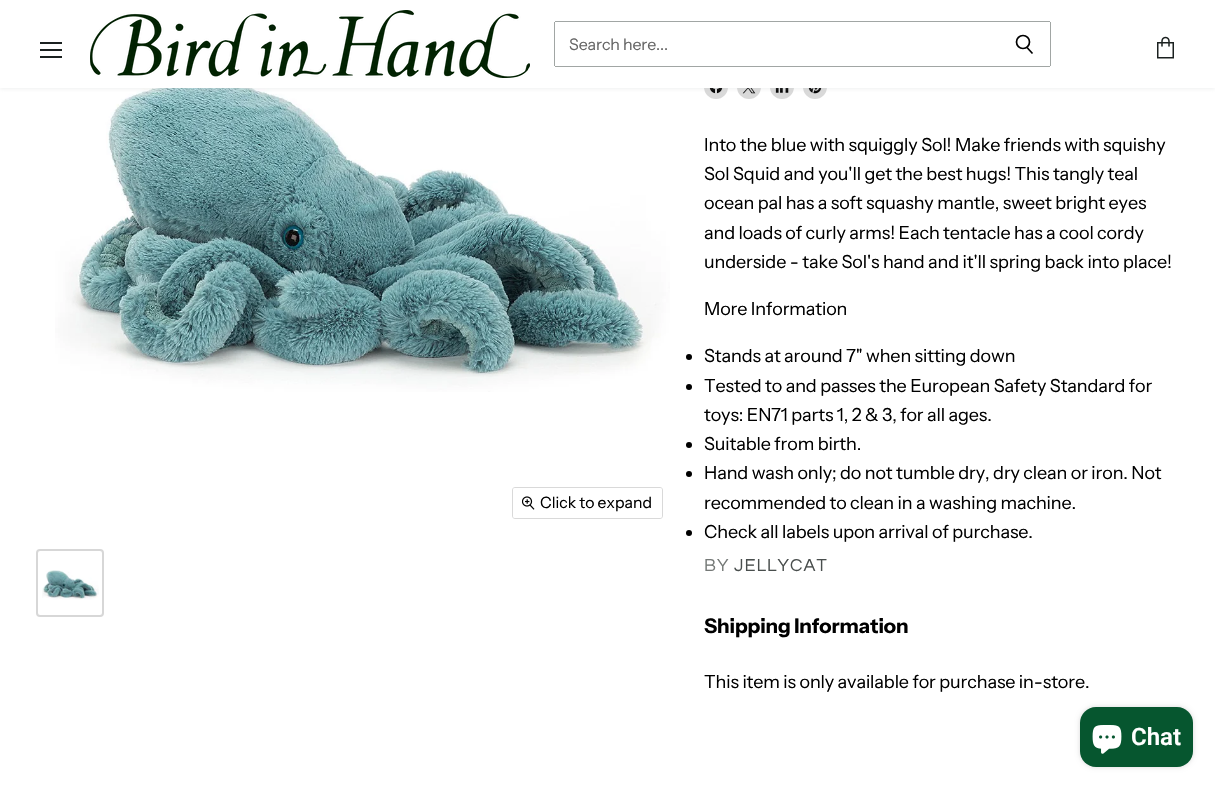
void draw(SkCanvas* canvas) {
    SkPaint paint;
    paint.setAntiAlias(true);
    auto spacedText = [&](const char* s, float x, float y, const SkFont& font, const SkPaint& ink, float letter, float word) {
        std::vector<SkGlyphID> glyphs(font.countText(s, strlen(s), SkTextEncoding::kUTF8));
        std::vector<float> xs(glyphs.size());
        font.textToGlyphs(s, strlen(s), SkTextEncoding::kUTF8, glyphs);
        font.getXPos(glyphs, xs, x);
        float extra = 0;
        for (size_t i = 0; i < glyphs.size(); i++) {
            xs[i] += extra;
            extra += letter + word * (glyphs[i] == font.unicharToGlyph(' '));
        }
        canvas->drawTextBlob(SkTextBlob::MakeFromPosHGlyphs(glyphs, xs, y, font), 0, 0, ink);
    };
    canvas->clear(0xFFFFFFFF);
    canvas->drawImageRect(SkImages::DeferredFromEncodedData(SkData::MakeFromFileName("img3.png")), SkRect::MakeXYWH(55, 88, 615, 304), SkSamplingOptions());
    paint.setColor(0xFFD9D9D9);
    canvas->drawCircle(716, 87, 12, paint);
    canvas->drawImageRect(SkImages::DeferredFromEncodedData(SkData::MakeFromFileName("img6.png")), SkRect::MakeXYWH(709, 88, 14, 6), SkSamplingOptions());
    canvas->drawCircle(749, 87, 12, paint);
    canvas->drawImageRect(SkImages::DeferredFromEncodedData(SkData::MakeFromFileName("img7.png")), SkRect::MakeXYWH(742, 88, 14, 6), SkSamplingOptions());
    canvas->drawCircle(782, 87, 12, paint);
    canvas->drawImageRect(SkImages::DeferredFromEncodedData(SkData::MakeFromFileName("img8.png")), SkRect::MakeXYWH(775, 88, 14, 5), SkSamplingOptions());
    canvas->drawCircle(815, 87, 12, paint);
    canvas->drawImageRect(SkImages::DeferredFromEncodedData(SkData::MakeFromFileName("img9.png")), SkRect::MakeXYWH(808, 88, 14, 6), SkSamplingOptions());
    paint.setColor(0x40BAC0BE);
    paint.setMaskFilter(SkMaskFilter::MakeBlur(kNormal_SkBlurStyle, 2));
    canvas->drawRect(SkRect::MakeXYWH(0, 1, 1215, 88), paint);
    paint.setMaskFilter(nullptr);
    paint.setColor(0xFFFFFFFF);
    canvas->drawRect(SkRect::MakeXYWH(0, 0, 1215, 88), paint);
    paint.setColor(0xFF1B2120);
    canvas->drawRect(SkRect::MakeXYWH(40, 42, 22, 2), paint);
    canvas->drawRect(SkRect::MakeXYWH(40, 49, 22, 2), paint);
    canvas->drawRect(SkRect::MakeXYWH(40, 56, 22, 2), paint);
    canvas->drawImageRect(SkImages::DeferredFromEncodedData(SkData::MakeFromFileName("img1.png")), SkRect::MakeXYWH(90, 10, 440, 68), SkSamplingOptions());
    paint.setColor(0xFFA1A6A4);
    canvas->drawRect(SkRect::MakeXYWH(555, 21, 495, 1), paint);
    canvas->drawRect(SkRect::MakeXYWH(1050, 22, 1, 44), paint);
    canvas->drawRect(SkRect::MakeXYWH(555, 66, 495, 1), paint);
    paint.setStyle(SkPaint::kStroke_Style);
    paint.setStrokeWidth(1.7f);
    paint.setColor(0xFF000000);
    canvas->drawPath(SkPathBuilder().moveTo(1032.5f, 53.5f).lineTo(1027, 47.5f).detach(), paint);
    canvas->drawCircle(1023, 42, 6.5f, paint);
    paint.setStyle(SkPaint::kFill_Style);
    paint.setColor(0xFFA1A6A4);
    canvas->drawRect(SkRect::MakeXYWH(554, 22, 1, 44), paint);
    SkFont font1(fontMgr->matchFamilyStyle("Instrument Sans", SkFontStyle::Normal()), 16);
    font1.setSubpixel(true);
    paint.setColor(0xFF666666);
    spacedText("Search here...", 569, 50, font1, paint, -0.1f, 0);
    canvas->drawImageRect(SkImages::DeferredFromEncodedData(SkData::MakeFromFileName("img2.png")), SkRect::MakeXYWH(1157, 36, 17, 23), SkSamplingOptions());
    paint.setStyle(SkPaint::kStroke_Style);
    paint.setStrokeWidth(1);
    paint.setColor(0xFFD9D9D9);
    canvas->drawRoundRect(SkRect::MakeXYWH(512.5f, 487.5f, 150, 31), 2.5f, 2.5f, paint);
    paint.setStyle(SkPaint::kFill_Style);
    paint.setColor(0xE6FFFFFF);
    canvas->drawRoundRect(SkRect::MakeXYWH(513, 488, 149, 30), 2, 2, paint);
    canvas->drawImageRect(SkImages::DeferredFromEncodedData(SkData::MakeFromFileName("img4.png")), SkRect::MakeXYWH(522, 496, 13, 14), SkSamplingOptions());
    SkFont font2(fontMgr->matchFamilyStyle("Instrument Sans", SkFontStyle::Normal()), 15.75f);
    font2.setSubpixel(true);
    paint.setColor(0xFF000000);
    canvas->drawString("Click to expand", 540, 508, font2, paint);
    paint.setStyle(SkPaint::kStroke_Style);
    paint.setStrokeWidth(2);
    paint.setColor(0xFFD7D7D7);
    canvas->drawRoundRect(SkRect::MakeXYWH(37, 550, 66, 66), 3, 3, paint);
    canvas->drawImageRect(SkImages::DeferredFromEncodedData(SkData::MakeFromFileName("img5.png")), SkRect::MakeXYWH(42, 570, 57, 30), SkSamplingOptions());
    SkFont font3(fontMgr->matchFamilyStyle("Instrument Sans", SkFontStyle::Normal()), 18);
    font3.setSubpixel(true);
    paint.setStyle(SkPaint::kFill_Style);
    paint.setColor(0xFF000000);
    spacedText("Into the blue with squiggly Sol! Make friends with squishy", 704, 151, font3, paint, -0.1f, 0);
    spacedText("Sol Squid and you'll get the best hugs! This tangly teal", 704, 180, font3, paint, -0.1f, 0);
    spacedText("ocean pal has a soft squashy mantle, sweet bright eyes", 704, 209, font3, paint, -0.1f, 0);
    spacedText("and loads of curly arms! Each tentacle has a cool cordy", 704, 239, font3, paint, -0.1f, 0);
    spacedText("underside - take Sol's hand and it'll spring back into place!", 704, 268, font3, paint, -0.1f, 0);
    spacedText("More Information", 704, 315, font3, paint, -0.1f, 0);
    canvas->drawCircle(689, 357, 3, paint);
    spacedText("Stands at around 7\" when sitting down", 704, 362, font3, paint, -0.1f, 0);
    canvas->drawCircle(689, 387, 3, paint);
    spacedText("Tested to and passes the European Safety Standard for", 704, 392, font3, paint, -0.1f, 0);
    spacedText("toys: EN71 parts 1, 2 & 3, for all ages.", 704, 421, font3, paint, -0.1f, 0);
    canvas->drawCircle(689, 445, 3, paint);
    spacedText("Suitable from birth.", 704, 450, font3, paint, -0.1f, 0);
    canvas->drawCircle(689, 474, 3, paint);
    spacedText("Hand wash only; do not tumble dry, dry clean or iron. Not", 704, 479, font3, paint, -0.1f, 0);
    spacedText("recommended to clean in a washing machine.", 704, 509, font3, paint, -0.1f, 0);
    canvas->drawCircle(689, 533, 3, paint);
    spacedText("Check all labels upon arrival of purchase.", 704, 538, font3, paint, -0.1f, 0);
    SkFont font4(fontMgr->matchFamilyStyle("Questrial", SkFontStyle::Normal()), 18);
    font4.setSubpixel(true);
    paint.setColor(0xFF757977);
    spacedText("BY", 704, 571, font4, paint, 1, 0);
    paint.setColor(0xFF494E4D);
    spacedText("JELLYCAT", 734, 571, font4, paint, 1, 0);
    SkFont font5(fontMgr->matchFamilyStyle("Instrument Sans", SkFontStyle::Bold()), 20.25f);
    font5.setSubpixel(true);
    paint.setColor(0xFF000000);
    spacedText("Shipping Information", 704, 633, font5, paint, -0.1f, 0);
    spacedText("This item is only available for purchase in-store.", 704, 688, font3, paint, -0.1f, 0);
    paint.setColor(0x26000000);
    paint.setMaskFilter(SkMaskFilter::MakeBlur(kNormal_SkBlurStyle, 2.5f));
    canvas->drawRoundRect(SkRect::MakeXYWH(1080, 707, 113, 60), 16, 16, paint);
    paint.setMaskFilter(nullptr);
    paint.setColor(0xFF06562F);
    canvas->drawRoundRect(SkRect::MakeXYWH(1080, 707, 113, 60), 16, 16, paint);
    canvas->drawImageRect(SkImages::DeferredFromEncodedData(SkData::MakeFromFileName("img10.png")), SkRect::MakeXYWH(1092, 725, 30, 29), SkSamplingOptions());
    SkFont font6(fontMgr->matchFamilyStyle("Roboto", SkFontStyle(600, SkFontStyle::kNormal_Width, SkFontStyle::kUpright_Slant)), 24);
    font6.setSubpixel(true);
    paint.setColor(0xFFFFFFFF);
    canvas->drawString("Chat", 1131, 745, font6, paint);
}
